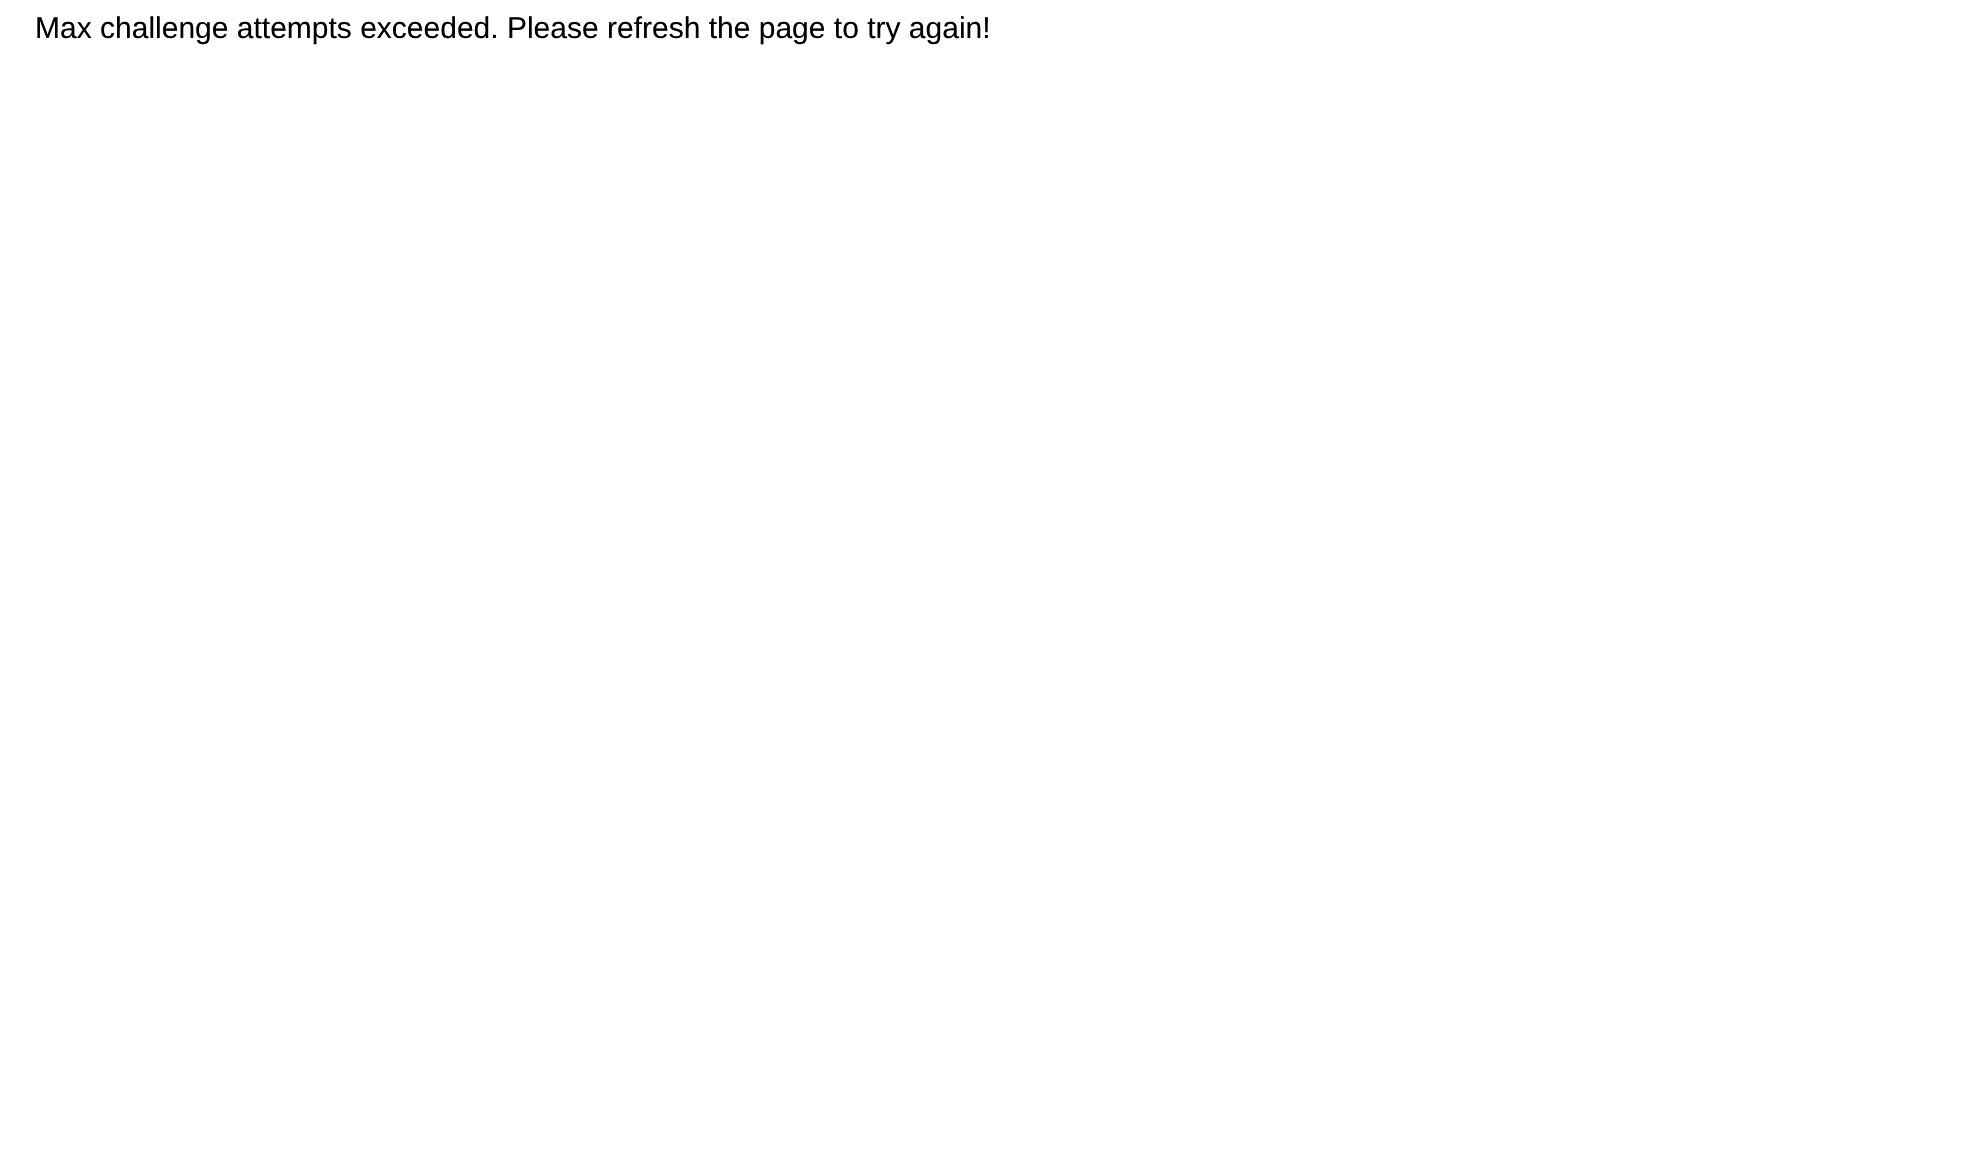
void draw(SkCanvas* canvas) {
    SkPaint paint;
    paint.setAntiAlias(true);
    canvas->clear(0xFFFFFFFF);
    SkFont font1(fontMgr->matchFamilyStyle("Liberation Sans", SkFontStyle::Normal()), 30);
    font1.setSubpixel(true);
    paint.setColor(0xFF000000);
    canvas->drawString("Max challenge attempts exceeded. Please refresh the page to try again!", 35, 38, font1, paint);
}
